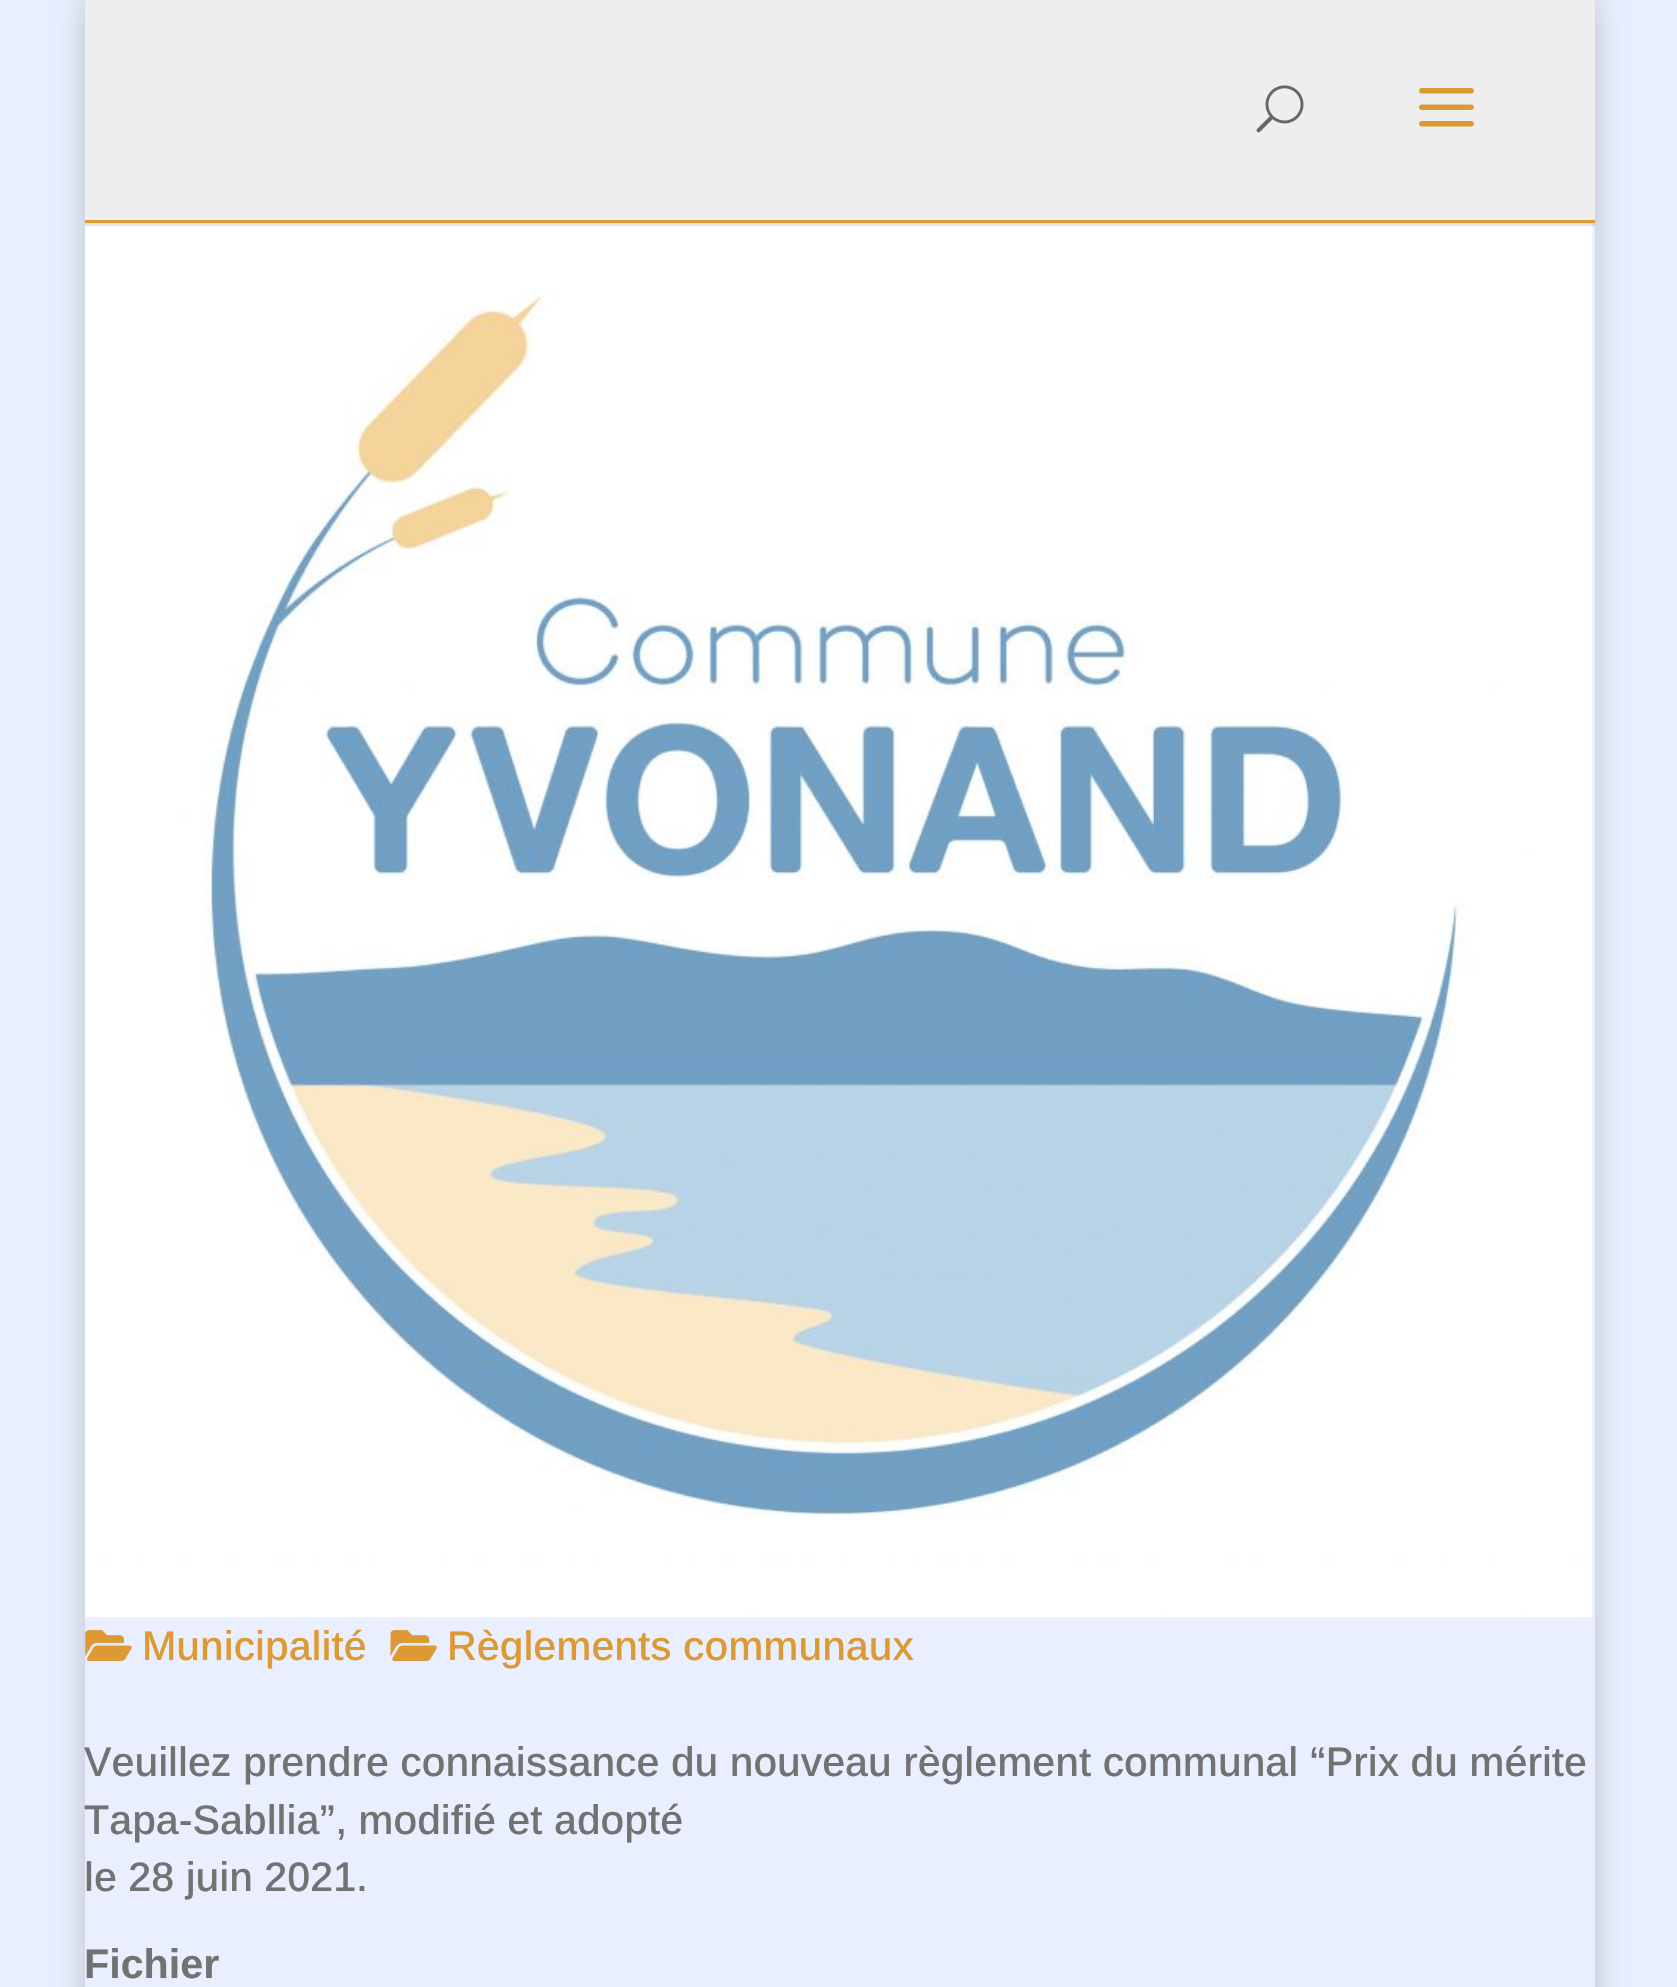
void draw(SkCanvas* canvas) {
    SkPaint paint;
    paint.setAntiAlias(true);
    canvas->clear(0xFFEAEFFF);
    canvas->save();
    canvas->clipPath(SkPathBuilder(SkPathFillType::kEvenOdd).moveTo(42, 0).lineTo(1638, 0).lineTo(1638, 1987).lineTo(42, 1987).close().moveTo(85, 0).lineTo(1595, 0).lineTo(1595, 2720).lineTo(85, 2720).close().detach(), true);
    paint.setColor(0x33000000);
    paint.setMaskFilter(SkMaskFilter::MakeBlur(kNormal_SkBlurStyle, 14));
    canvas->drawRect(SkRect::MakeXYWH(85, 0, 1510, 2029), paint);
    paint.setMaskFilter(nullptr);
    canvas->restore();
    canvas->drawImageRect(SkImages::DeferredFromEncodedData(SkData::MakeFromFileName("img3.png")), SkRect::MakeXYWH(85, 223, 1508, 1394), SkSamplingOptions());
    paint.setColor(0x1A000000);
    canvas->drawPath(SkPathBuilder().moveTo(85, 3).lineTo(85, 226).lineTo(1595, 226).lineTo(1595, 223).lineTo(85, 223).close().detach(), paint);
    paint.setColor(0xFFEEEEEE);
    canvas->drawRect(SkRect::MakeXYWH(85, 0, 1510, 220), paint);
    paint.setColor(0xFFDD9933);
    canvas->drawRect(SkRect::MakeXYWH(85, 220, 1510, 3), paint);
    canvas->drawImageRect(SkImages::DeferredFromEncodedData(SkData::MakeFromFileName("img1.png")), SkRect::MakeXYWH(1256, 85, 48, 48), SkSamplingOptions());
    canvas->drawImageRect(SkImages::DeferredFromEncodedData(SkData::MakeFromFileName("img2.png")), SkRect::MakeXYWH(1419, 88, 55, 39), SkSamplingOptions());
    canvas->drawImageRect(SkImages::DeferredFromEncodedData(SkData::MakeFromFileName("img4.png")), SkRect::MakeXYWH(85, 1630, 47, 31), SkSamplingOptions());
    SkFont font1(fontMgr->matchFamilyStyle("Arimo", SkFontStyle(500, SkFontStyle::kNormal_Width, SkFontStyle::kUpright_Slant)), 41.25f);
    font1.setSubpixel(true);
    canvas->drawString("Municipalité", 142, 1660, font1, paint);
    canvas->drawImageRect(SkImages::DeferredFromEncodedData(SkData::MakeFromFileName("img5.png")), SkRect::MakeXYWH(390, 1630, 47, 31), SkSamplingOptions());
    canvas->drawString("Règlements communaux", 447, 1660, font1, paint);
    paint.setColor(0xFF727272);
    canvas->drawString("Veuillez prendre connaissance du nouveau règlement communal “Prix du mérite", 84, 1776, font1, paint);
    canvas->drawString("Tapa-Sabllia”, modifié et adopté", 84, 1834, font1, paint);
    canvas->drawString("le 28 juin 2021.", 84, 1891, font1, paint);
    SkFont font2(fontMgr->matchFamilyStyle("Arimo", SkFontStyle::Bold()), 41.25f);
    font2.setSubpixel(true);
    canvas->drawString("Fichier", 84, 1978, font2, paint);
}
